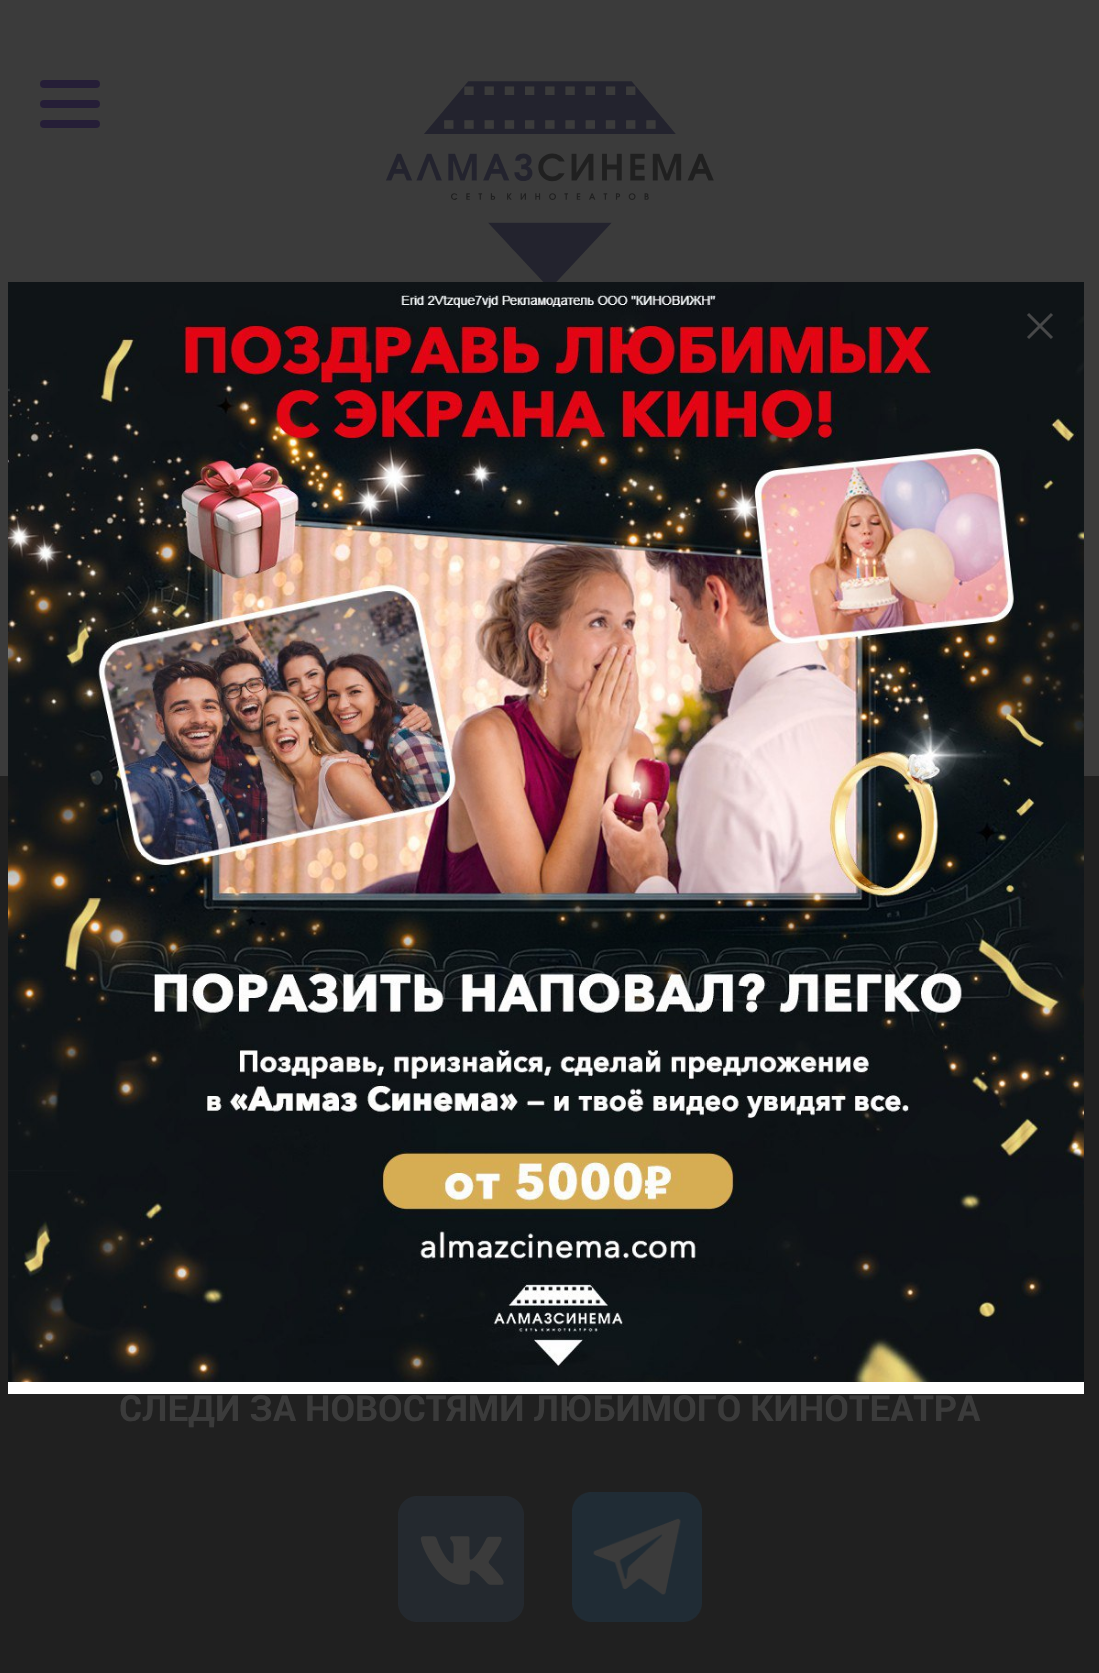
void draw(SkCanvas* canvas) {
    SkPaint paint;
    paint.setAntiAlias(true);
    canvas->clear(0xFF3B3B3B);
    paint.setColor(0xFF251E37);
    canvas->drawRoundRect(SkRect::MakeXYWH(40, 80, 60, 8), 4, 4, paint);
    canvas->drawRoundRect(SkRect::MakeXYWH(40, 100, 60, 8), 4, 4, paint);
    canvas->drawRoundRect(SkRect::MakeXYWH(40, 120, 60, 8), 4, 4, paint);
    canvas->drawImageRect(SkImages::DeferredFromEncodedData(SkData::MakeFromFileName("img1.png")), SkRect::MakeXYWH(386, 81, 328, 201), SkSamplingOptions());
    paint.setColor(0xFF202020);
    canvas->drawRect(SkRect::MakeXYWH(0, 776, 1099, 897), paint);
    paint.setColor(0xFFFFFFFF);
    canvas->drawRect(SkRect::MakeXYWH(8, 1382, 1076, 12), paint);
    canvas->drawImageRect(SkImages::DeferredFromEncodedData(SkData::MakeFromFileName("img2.png")), SkRect::MakeXYWH(8, 282, 1076, 1100), SkSamplingOptions());
    paint.setStyle(SkPaint::kStroke_Style);
    paint.setStrokeWidth(3);
    paint.setColor(0xFF474849);
    canvas->drawPath(SkPathBuilder().moveTo(1028, 314).lineTo(1052, 338).moveTo(1052, 314).lineTo(1028, 338).detach(), paint);
    SkFont font1(fontMgr->matchFamilyStyle("Roboto", SkFontStyle::Bold()), 36);
    font1.setSubpixel(true);
    paint.setStyle(SkPaint::kFill_Style);
    paint.setColor(0xFF3B3B3B);
    canvas->drawString("СЛЕДИ ЗА НОВОСТЯМИ ЛЮБИМОГО КИНОТЕАТРА", 119, 1421, font1, paint);
    canvas->drawImageRect(SkImages::DeferredFromEncodedData(SkData::MakeFromFileName("img3.png")), SkRect::MakeXYWH(398, 1496, 126, 126), SkSamplingOptions());
    canvas->drawImageRect(SkImages::DeferredFromEncodedData(SkData::MakeFromFileName("img4.png")), SkRect::MakeXYWH(572, 1492, 130, 130), SkSamplingOptions());
}
